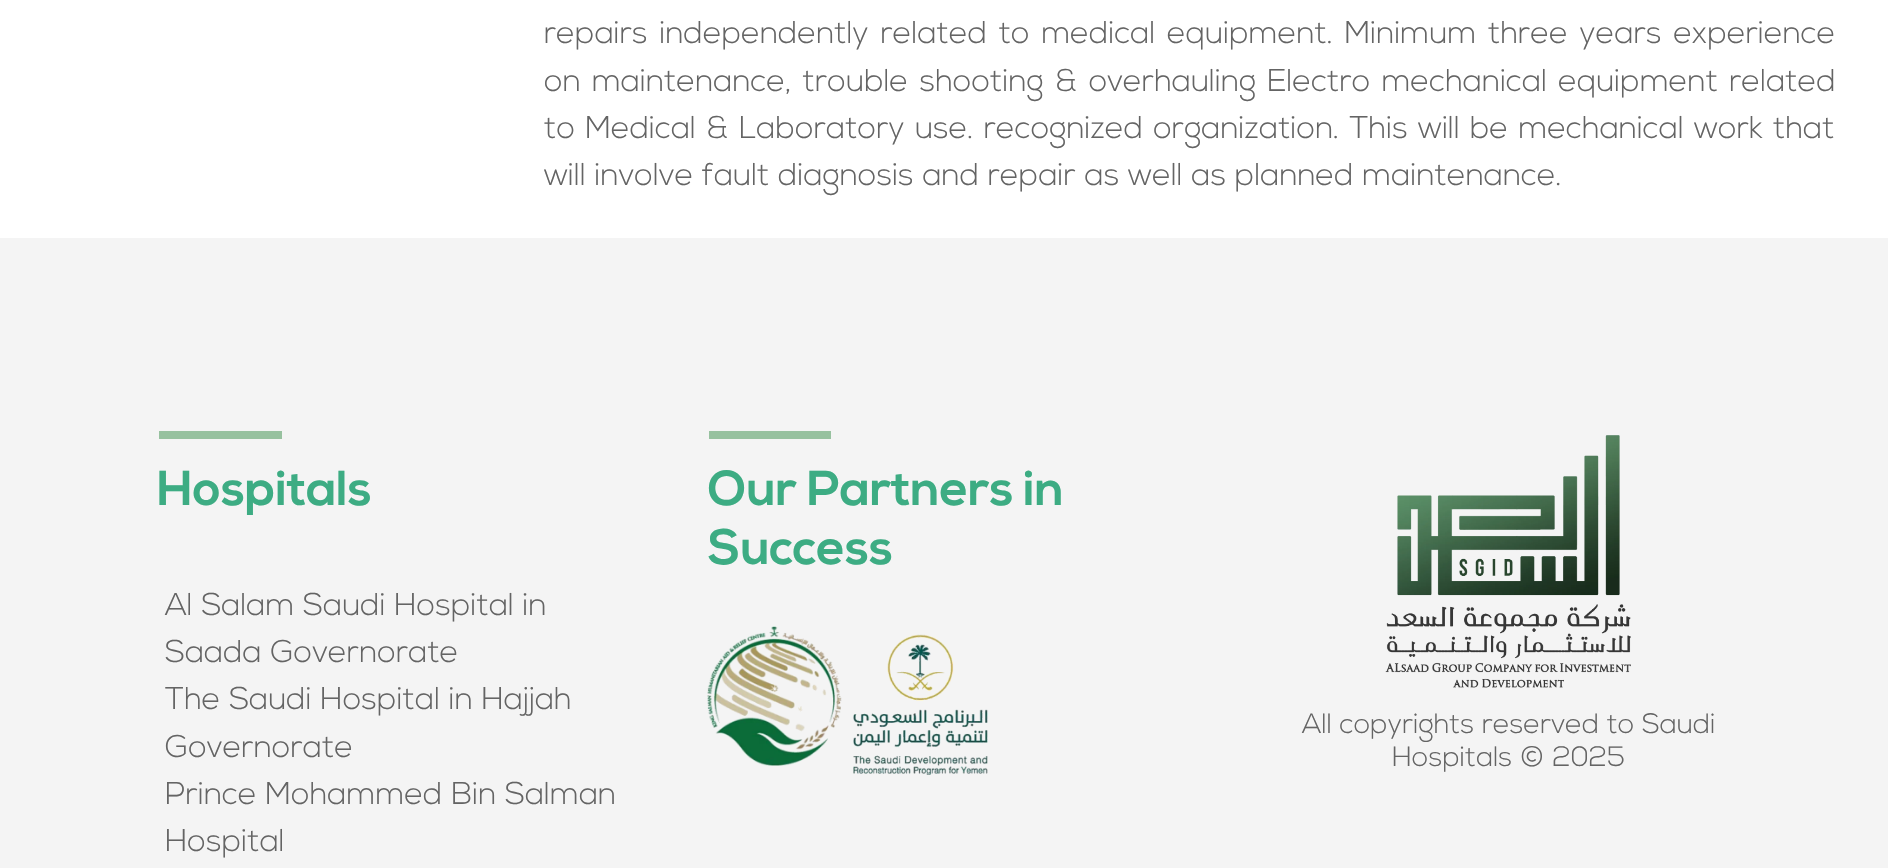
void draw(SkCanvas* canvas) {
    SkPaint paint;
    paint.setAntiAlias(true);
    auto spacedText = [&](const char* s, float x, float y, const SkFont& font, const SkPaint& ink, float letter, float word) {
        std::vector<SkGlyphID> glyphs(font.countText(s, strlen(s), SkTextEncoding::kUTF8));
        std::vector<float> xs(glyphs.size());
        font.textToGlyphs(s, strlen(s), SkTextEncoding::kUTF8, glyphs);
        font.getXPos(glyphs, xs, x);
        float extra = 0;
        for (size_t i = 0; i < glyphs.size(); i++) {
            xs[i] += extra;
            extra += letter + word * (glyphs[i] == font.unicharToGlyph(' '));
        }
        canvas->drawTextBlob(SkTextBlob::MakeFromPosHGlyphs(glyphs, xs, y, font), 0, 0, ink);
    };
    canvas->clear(0xFFFFFFFF);
    SkFont font1(fontMgr->matchFamilyStyle("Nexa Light", SkFontStyle(300, SkFontStyle::kNormal_Width, SkFontStyle::kUpright_Slant)), 31.5f);
    font1.setSubpixel(true);
    paint.setColor(0xFF646464);
    spacedText("repairs independently related to medical equipment. Minimum three years experience", 544, 43, font1, paint, 0, 3);
    spacedText("on maintenance, trouble shooting & overhauling Electro mechanical equipment related", 544, 91, font1, paint, 0, 2.5f);
    spacedText("to Medical & Laboratory use. recognized organization. This will be mechanical work that", 544, 138, font1, paint, 0, 1.5f);
    canvas->drawString("will involve fault diagnosis and repair as well as planned maintenance.", 544, 185, font1, paint);
    paint.setColor(0xFFF4F4F4);
    canvas->drawRect(SkRect::MakeXYWH(0, 238, 1888, 630), paint);
    paint.setColor(0xFF97C19F);
    canvas->drawRect(SkRect::MakeXYWH(159, 431, 123, 8), paint);
    SkFont font2(fontMgr->matchFamilyStyle("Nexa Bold", SkFontStyle::Bold()), 49);
    font2.setSubpixel(true);
    paint.setColor(0xFF3DAC83);
    canvas->drawString("Hospitals", 157, 505, font2, paint);
    paint.setColor(0xFF646464);
    canvas->drawString("Al Salam Saudi Hospital in", 165, 615, font1, paint);
    canvas->drawString("Saada Governorate", 165, 662, font1, paint);
    canvas->drawString("The Saudi Hospital in Hajjah", 165, 709, font1, paint);
    canvas->drawString("Governorate", 165, 757, font1, paint);
    canvas->drawString("Prince Mohammed Bin Salman", 165, 804, font1, paint);
    canvas->drawString("Hospital", 165, 851, font1, paint);
    paint.setColor(0xFF97C19F);
    canvas->drawRect(SkRect::MakeXYWH(709, 431, 122, 8), paint);
    paint.setColor(0xFF3DAC83);
    canvas->drawString("Our Partners in", 708, 505, font2, paint);
    canvas->drawString("Success", 708, 564, font2, paint);
    canvas->drawImageRect(SkImages::DeferredFromEncodedData(SkData::MakeFromFileName("img1.png")), SkRect::MakeXYWH(707, 626, 135, 140), SkSamplingOptions());
    canvas->drawImageRect(SkImages::DeferredFromEncodedData(SkData::MakeFromFileName("img2.png")), SkRect::MakeXYWH(853, 634, 135, 141), SkSamplingOptions());
    canvas->drawImageRect(SkImages::DeferredFromEncodedData(SkData::MakeFromFileName("img3.png")), SkRect::MakeXYWH(1385, 435, 246, 253), SkSamplingOptions());
    SkFont font3(fontMgr->matchFamilyStyle("Nexa Light", SkFontStyle(300, SkFontStyle::kNormal_Width, SkFontStyle::kUpright_Slant)), 28);
    font3.setSubpixel(true);
    paint.setColor(0xFF646464);
    canvas->drawString("All copyrights reserved to Saudi", 1302, 733, font3, paint);
    canvas->drawString("Hospitals © 2025", 1392, 766, font3, paint);
}
